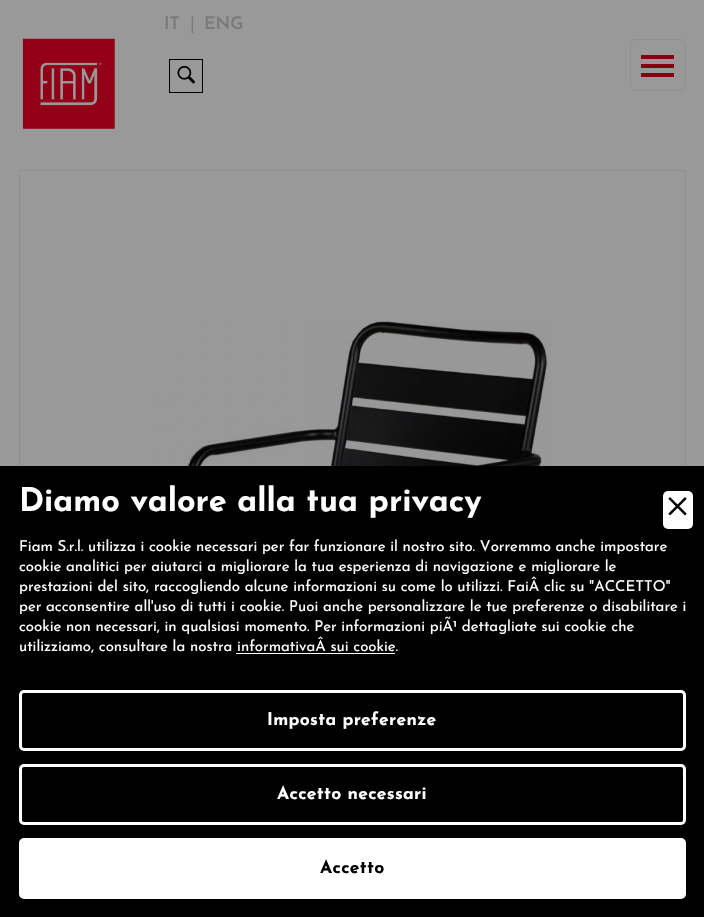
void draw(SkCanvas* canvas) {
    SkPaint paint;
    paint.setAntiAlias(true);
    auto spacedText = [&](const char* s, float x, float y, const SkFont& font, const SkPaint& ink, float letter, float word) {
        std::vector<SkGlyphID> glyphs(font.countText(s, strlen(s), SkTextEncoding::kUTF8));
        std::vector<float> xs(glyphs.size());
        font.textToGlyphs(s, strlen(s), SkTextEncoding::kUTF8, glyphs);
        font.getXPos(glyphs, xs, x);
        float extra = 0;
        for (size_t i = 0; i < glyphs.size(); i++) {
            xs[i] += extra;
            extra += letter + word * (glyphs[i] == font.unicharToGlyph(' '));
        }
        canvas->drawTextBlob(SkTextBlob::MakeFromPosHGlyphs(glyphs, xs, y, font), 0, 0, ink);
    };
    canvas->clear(0xFF999999);
    SkFont font1(fontMgr->matchFamilyStyle("Josefin Sans", SkFontStyle(600, SkFontStyle::kNormal_Width, SkFontStyle::kUpright_Slant)), 17.5f);
    font1.setSubpixel(true);
    paint.setColor(0xFF7A7A7A);
    canvas->drawString("IT", 164, 29, font1, paint);
    SkFont font2(fontMgr->matchFamilyStyle("Josefin Sans", SkFontStyle::Normal()), 17.5f);
    font2.setSubpixel(true);
    canvas->drawString("|", 190, 29, font2, paint);
    canvas->drawString("ENG", 204, 29, font1, paint);
    paint.setStyle(SkPaint::kStroke_Style);
    paint.setStrokeWidth(1);
    paint.setColor(0xFF000000);
    canvas->drawRect(SkRect::MakeXYWH(169.5f, 59.5f, 33, 33), paint);
    canvas->drawImageRect(SkImages::DeferredFromEncodedData(SkData::MakeFromFileName("img1.png")), SkRect::MakeXYWH(177, 65, 18, 19), SkSamplingOptions());
    canvas->drawImageRect(SkImages::DeferredFromEncodedData(SkData::MakeFromFileName("img2.png")), SkRect::MakeXYWH(22, 38, 93, 91), SkSamplingOptions());
    paint.setColor(0xFF8F8F8F);
    canvas->drawRoundRect(SkRect::MakeXYWH(630.5f, 39.5f, 55, 51), 5.5f, 5.5f, paint);
    paint.setStyle(SkPaint::kFill_Style);
    paint.setColor(0xFF880010);
    canvas->drawRect(SkRect::MakeXYWH(641, 64, 33, 4), paint);
    canvas->drawRect(SkRect::MakeXYWH(641, 55, 33, 4), paint);
    canvas->drawRect(SkRect::MakeXYWH(641, 73, 33, 4), paint);
    paint.setStyle(SkPaint::kStroke_Style);
    paint.setColor(0xFF8F8F8F);
    canvas->drawRect(SkRect::MakeXYWH(19.5f, 170.5f, 666, 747), paint);
    canvas->drawImageRect(SkImages::DeferredFromEncodedData(SkData::MakeFromFileName("img3.png")), SkRect::MakeXYWH(153, 321, 399, 145), SkSamplingOptions());
    paint.setStyle(SkPaint::kFill_Style);
    paint.setColor(0xFF000000);
    canvas->drawRect(SkRect::MakeXYWH(0, 466, 704, 451), paint);
    SkFont font3(fontMgr->matchFamilyStyle("Josefin Sans", SkFontStyle::Bold()), 32.5f);
    font3.setSubpixel(true);
    paint.setColor(0xFFFFFFFF);
    canvas->drawString("Diamo valore alla tua privacy", 19, 511, font3, paint);
    canvas->drawRoundRect(SkRect::MakeXYWH(663, 491, 30, 38), 5, 5, paint);
    canvas->drawImageRect(SkImages::DeferredFromEncodedData(SkData::MakeFromFileName("img4.png")), SkRect::MakeXYWH(668, 497, 19, 19), SkSamplingOptions());
    SkFont font4(fontMgr->matchFamilyStyle("Josefin Sans", SkFontStyle::Normal()), 15);
    font4.setSubpixel(true);
    canvas->drawString("Fiam S.r.l. utilizza i cookie necessari per far funzionare il nostro sito. Vorremmo anche impostare", 19, 551, font4, paint);
    canvas->drawString("cookie analitici per aiutarci a migliorare la tua esperienza di navigazione e migliorare le", 19, 571, font4, paint);
    canvas->drawString("prestazioni del sito, raccogliendo alcune informazioni su come lo utilizzi. FaiÂ clic su \"ACCETTO\"", 19, 591, font4, paint);
    canvas->drawString("per acconsentire all'uso di tutti i cookie. Puoi anche personalizzare le tue preferenze o disabilitare i", 19, 611, font4, paint);
    canvas->drawString("cookie non necessari, in qualsiasi momento. Per informazioni piÃ¹ dettagliate sui cookie che", 19, 631, font4, paint);
    canvas->drawString("utilizziamo, consultare la nostra informativaÂ sui cookie.", 19, 651, font4, paint);
    canvas->drawRect(SkRect::MakeXYWH(236, 653, 159, 1), paint);
    paint.setStyle(SkPaint::kStroke_Style);
    paint.setStrokeWidth(3);
    canvas->drawRoundRect(SkRect::MakeXYWH(20.5f, 691.5f, 664, 58), 3.5f, 3.5f, paint);
    SkFont font5(fontMgr->matchFamilyStyle("Josefin Sans", SkFontStyle::Bold()), 17.5f);
    font5.setSubpixel(true);
    paint.setStyle(SkPaint::kFill_Style);
    spacedText("Imposta preferenze", 267, 725, font5, paint, 0.3f, 0);
    paint.setStyle(SkPaint::kStroke_Style);
    canvas->drawRoundRect(SkRect::MakeXYWH(20.5f, 765.5f, 664, 58), 3.5f, 3.5f, paint);
    paint.setStyle(SkPaint::kFill_Style);
    spacedText("Accetto necessari", 277, 799, font5, paint, 0.3f, 0);
    canvas->drawRoundRect(SkRect::MakeXYWH(20.5f, 839.5f, 664, 58), 3.5f, 3.5f, paint);
    paint.setStyle(SkPaint::kStroke_Style);
    canvas->drawRoundRect(SkRect::MakeXYWH(20.5f, 839.5f, 664, 58), 3.5f, 3.5f, paint);
    paint.setStyle(SkPaint::kFill_Style);
    paint.setColor(0xFF000000);
    spacedText("Accetto", 320, 873, font5, paint, 0.3f, 0);
}
